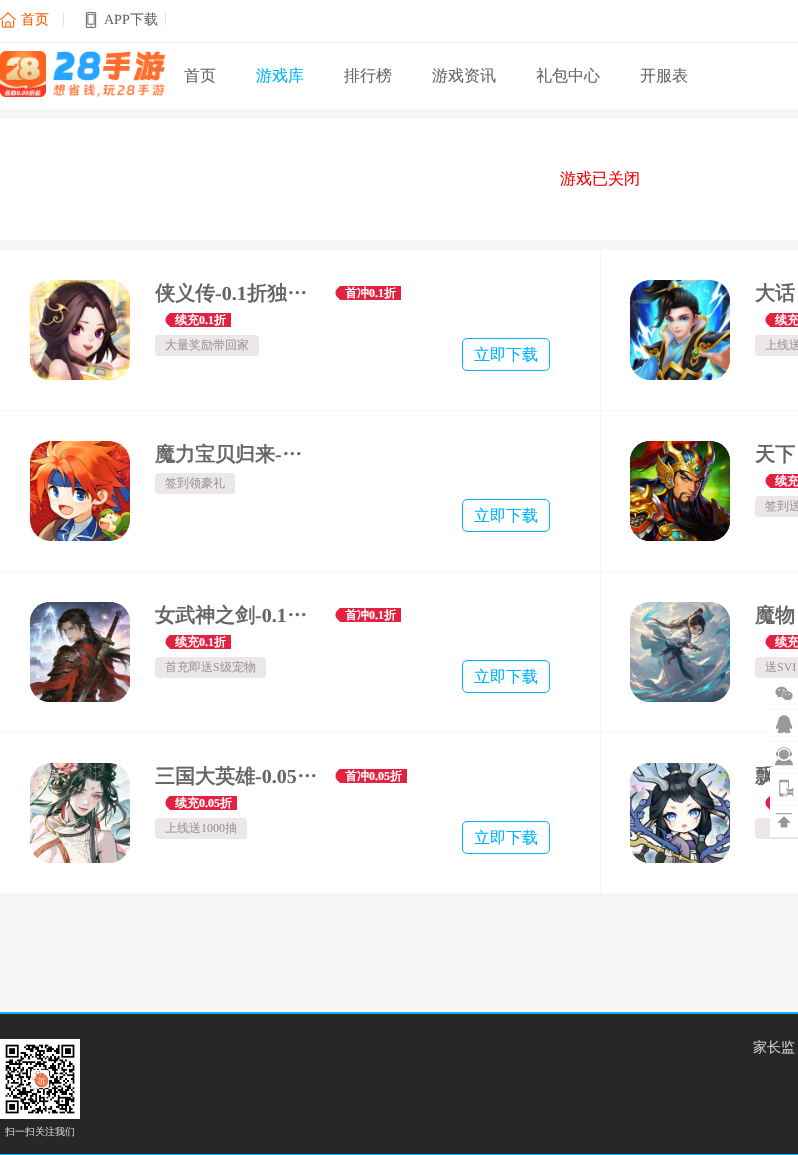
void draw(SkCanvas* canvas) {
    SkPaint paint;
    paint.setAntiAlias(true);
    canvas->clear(0xFFF6F6F6);
    paint.setColor(0xFFFFFFFF);
    canvas->drawRect(SkRect::MakeXYWH(0, 0, 798, 42), paint);
    paint.setColor(0xFFEFEFEF);
    canvas->drawRect(SkRect::MakeXYWH(0, 42, 798, 1), paint);
    canvas->drawImageRect(SkImages::DeferredFromEncodedData(SkData::MakeFromFileName("img1.png")), SkRect::MakeXYWH(0, 12, 16, 16), SkSamplingOptions());
    SkFont font1(fontMgr->matchFamilyStyle("WenQuanYi Zen Hei", SkFontStyle(500, SkFontStyle::kNormal_Width, SkFontStyle::kUpright_Slant)), 14);
    font1.setSubpixel(true);
    paint.setColor(0xFFFF6000);
    canvas->drawString("首页", 21, 24, font1, paint);
    SkFont font2(fontMgr->matchFamilyStyle("Liberation Serif", SkFontStyle::Normal()), 14);
    font2.setSubpixel(true);
    paint.setColor(0xFFDDDDDD);
    canvas->drawString("|", 62, 23, font2, paint);
    canvas->drawImageRect(SkImages::DeferredFromEncodedData(SkData::MakeFromFileName("img2.png")), SkRect::MakeXYWH(85, 12, 12, 16), SkSamplingOptions());
    paint.setColor(0xFF666666);
    canvas->drawString("APP", 104, 24, font2, paint);
    canvas->drawString("下载", 130, 24, font1, paint);
    paint.setColor(0xFFDDDDDD);
    canvas->drawString("|", 164, 22, font2, paint);
    paint.setColor(0xFFFFFFFF);
    canvas->drawRect(SkRect::MakeXYWH(0, 43, 798, 66), paint);
    canvas->drawImageRect(SkImages::DeferredFromEncodedData(SkData::MakeFromFileName("img3.png")), SkRect::MakeXYWH(0, 51, 165, 46), SkSamplingOptions());
    SkFont font3(fontMgr->matchFamilyStyle("WenQuanYi Zen Hei", SkFontStyle(500, SkFontStyle::kNormal_Width, SkFontStyle::kUpright_Slant)), 16);
    font3.setSubpixel(true);
    paint.setColor(0xFF666666);
    canvas->drawString("首页", 184, 81, font3, paint);
    paint.setColor(0xFF00B3FF);
    canvas->drawString("游戏库", 256, 81, font3, paint);
    paint.setColor(0xFF666666);
    canvas->drawString("排行榜", 344, 81, font3, paint);
    canvas->drawString("游戏资讯", 432, 81, font3, paint);
    canvas->drawString("礼包中心", 536, 81, font3, paint);
    canvas->drawString("开服表", 640, 81, font3, paint);
    paint.setColor(0xFFFFFFFF);
    canvas->drawRect(SkRect::MakeXYWH(0, 119, 798, 121), paint);
    paint.setColor(0xFFFF0000);
    canvas->drawString("游戏已关闭", 560, 184, font3, paint);
    paint.setColor(0xFFFFFFFF);
    canvas->drawRect(SkRect::MakeXYWH(0, 250, 798, 643), paint);
    paint.setColor(0xFFF6F6F6);
    canvas->drawRect(SkRect::MakeXYWH(600, 250, 1, 161), paint);
    canvas->drawRect(SkRect::MakeXYWH(0, 410, 798, 1), paint);
    canvas->drawImageRect(SkImages::DeferredFromEncodedData(SkData::MakeFromFileName("img4.png")), SkRect::MakeXYWH(30, 280, 100, 100), SkSamplingOptions());
    canvas->drawImageRect(SkImages::DeferredFromEncodedData(SkData::MakeFromFileName("img5.png")), SkRect::MakeXYWH(30, 280, 100, 100), SkSamplingOptions());
    SkFont font4(fontMgr->matchFamilyStyle("WenQuanYi Zen Hei", SkFontStyle::Bold()), 20);
    font4.setSubpixel(true);
    paint.setColor(0xFF666666);
    canvas->drawString("侠义传", 155, 300, font4, paint);
    SkFont font5(fontMgr->matchFamilyStyle("Liberation Serif", SkFontStyle::Bold()), 20);
    font5.setSubpixel(true);
    canvas->drawString("-0.1", 215, 300, font5, paint);
    canvas->drawString("折独…", 247, 300, font4, paint);
    canvas->drawImageRect(SkImages::DeferredFromEncodedData(SkData::MakeFromFileName("img6.png")), SkRect::MakeXYWH(335, 286, 66, 14), SkSamplingOptions());
    SkFont font6(fontMgr->matchFamilyStyle("WenQuanYi Zen Hei", SkFontStyle::Bold()), 12);
    font6.setSubpixel(true);
    paint.setColor(0xFFFFFFFF);
    canvas->drawString("首冲", 345, 297, font6, paint);
    SkFont font7(fontMgr->matchFamilyStyle("Liberation Serif", SkFontStyle::Bold()), 12);
    font7.setSubpixel(true);
    canvas->drawString("0.1", 369, 297, font7, paint);
    canvas->drawString("折", 384, 297, font6, paint);
    canvas->drawImageRect(SkImages::DeferredFromEncodedData(SkData::MakeFromFileName("img6.png")), SkRect::MakeXYWH(165, 313, 66, 14), SkSamplingOptions());
    canvas->drawString("续充", 175, 324, font6, paint);
    canvas->drawString("0.1", 199, 324, font7, paint);
    canvas->drawString("折", 214, 324, font6, paint);
    paint.setColor(0xFFECE7E8);
    canvas->drawRoundRect(SkRect::MakeXYWH(155, 335, 104, 21), 4, 4, paint);
    SkFont font8(fontMgr->matchFamilyStyle("WenQuanYi Zen Hei", SkFontStyle(500, SkFontStyle::kNormal_Width, SkFontStyle::kUpright_Slant)), 12);
    font8.setSubpixel(true);
    paint.setColor(0xFF989898);
    canvas->drawString("大量奖励带回家", 165, 349, font8, paint);
    paint.setStyle(SkPaint::kStroke_Style);
    paint.setStrokeWidth(1);
    paint.setColor(0xFF00B3FF);
    canvas->drawRoundRect(SkRect::MakeXYWH(462.5f, 338.5f, 87, 32), 4.5f, 4.5f, paint);
    paint.setStyle(SkPaint::kFill_Style);
    canvas->drawString("立即下载", 474, 360, font3, paint);
    canvas->drawImageRect(SkImages::DeferredFromEncodedData(SkData::MakeFromFileName("img7.png")), SkRect::MakeXYWH(630, 280, 100, 100), SkSamplingOptions());
    canvas->drawImageRect(SkImages::DeferredFromEncodedData(SkData::MakeFromFileName("img8.png")), SkRect::MakeXYWH(630, 280, 100, 100), SkSamplingOptions());
    paint.setColor(0xFF666666);
    canvas->drawString("大话", 755, 300, font4, paint);
    canvas->drawImageRect(SkImages::DeferredFromEncodedData(SkData::MakeFromFileName("img9.png")), SkRect::MakeXYWH(765, 313, 33, 14), SkSamplingOptions());
    paint.setColor(0xFFFFFFFF);
    canvas->drawString("续充", 775, 324, font6, paint);
    paint.setColor(0xFFECE7E8);
    canvas->drawRoundRect(SkRect::MakeXYWH(755, 335, 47, 21), 4, 4, paint);
    paint.setColor(0xFF989898);
    canvas->drawString("上线送", 765, 349, font8, paint);
    paint.setColor(0xFFF6F6F6);
    canvas->drawRect(SkRect::MakeXYWH(600, 410, 1, 162), paint);
    canvas->drawRect(SkRect::MakeXYWH(0, 571, 798, 1), paint);
    canvas->drawImageRect(SkImages::DeferredFromEncodedData(SkData::MakeFromFileName("img10.png")), SkRect::MakeXYWH(30, 441, 100, 100), SkSamplingOptions());
    canvas->drawImageRect(SkImages::DeferredFromEncodedData(SkData::MakeFromFileName("img11.png")), SkRect::MakeXYWH(30, 441, 100, 100), SkSamplingOptions());
    paint.setColor(0xFF666666);
    canvas->drawString("魔力宝贝归来", 155, 461, font4, paint);
    canvas->drawString("…", 282, 461, font4, paint);
    canvas->drawString("-", 275, 461, font5, paint);
    paint.setColor(0xFFECE7E8);
    canvas->drawRoundRect(SkRect::MakeXYWH(155, 473, 80, 21), 4, 4, paint);
    paint.setColor(0xFF989898);
    canvas->drawString("签到领豪礼", 165, 487, font8, paint);
    paint.setStyle(SkPaint::kStroke_Style);
    paint.setColor(0xFF00B3FF);
    canvas->drawRoundRect(SkRect::MakeXYWH(462.5f, 499.5f, 87, 32), 4.5f, 4.5f, paint);
    paint.setStyle(SkPaint::kFill_Style);
    canvas->drawString("立即下载", 474, 521, font3, paint);
    canvas->drawImageRect(SkImages::DeferredFromEncodedData(SkData::MakeFromFileName("img12.png")), SkRect::MakeXYWH(630, 441, 100, 100), SkSamplingOptions());
    canvas->drawImageRect(SkImages::DeferredFromEncodedData(SkData::MakeFromFileName("img13.png")), SkRect::MakeXYWH(630, 441, 100, 100), SkSamplingOptions());
    paint.setColor(0xFF666666);
    canvas->drawString("天下", 755, 461, font4, paint);
    canvas->drawImageRect(SkImages::DeferredFromEncodedData(SkData::MakeFromFileName("img9.png")), SkRect::MakeXYWH(765, 474, 33, 14), SkSamplingOptions());
    paint.setColor(0xFFFFFFFF);
    canvas->drawString("续充", 775, 485, font6, paint);
    paint.setColor(0xFFECE7E8);
    canvas->drawRoundRect(SkRect::MakeXYWH(755, 496, 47, 21), 4, 4, paint);
    paint.setColor(0xFF989898);
    canvas->drawString("签到送", 765, 510, font8, paint);
    paint.setColor(0xFFF6F6F6);
    canvas->drawRect(SkRect::MakeXYWH(600, 571, 1, 162), paint);
    canvas->drawRect(SkRect::MakeXYWH(0, 732, 770, 1), paint);
    canvas->drawImageRect(SkImages::DeferredFromEncodedData(SkData::MakeFromFileName("img14.png")), SkRect::MakeXYWH(30, 602, 100, 100), SkSamplingOptions());
    canvas->drawImageRect(SkImages::DeferredFromEncodedData(SkData::MakeFromFileName("img15.png")), SkRect::MakeXYWH(30, 602, 100, 100), SkSamplingOptions());
    paint.setColor(0xFF666666);
    canvas->drawString("女武神之剑", 155, 622, font4, paint);
    canvas->drawString("-0.1", 255, 622, font5, paint);
    canvas->drawString("…", 287, 622, font4, paint);
    canvas->drawImageRect(SkImages::DeferredFromEncodedData(SkData::MakeFromFileName("img6.png")), SkRect::MakeXYWH(335, 608, 66, 14), SkSamplingOptions());
    paint.setColor(0xFFFFFFFF);
    canvas->drawString("首冲", 345, 619, font6, paint);
    canvas->drawString("0.1", 369, 619, font7, paint);
    canvas->drawString("折", 384, 619, font6, paint);
    canvas->drawImageRect(SkImages::DeferredFromEncodedData(SkData::MakeFromFileName("img6.png")), SkRect::MakeXYWH(165, 635, 66, 14), SkSamplingOptions());
    canvas->drawString("续充", 175, 646, font6, paint);
    canvas->drawString("0.1", 199, 646, font7, paint);
    canvas->drawString("折", 214, 646, font6, paint);
    paint.setColor(0xFFECE7E8);
    canvas->drawRoundRect(SkRect::MakeXYWH(155, 657, 111, 21), 4, 4, paint);
    paint.setColor(0xFF989898);
    canvas->drawString("首充即送", 165, 671, font8, paint);
    SkFont font9(fontMgr->matchFamilyStyle("Liberation Serif", SkFontStyle::Normal()), 12);
    font9.setSubpixel(true);
    canvas->drawString("S", 213, 671, font9, paint);
    canvas->drawString("级宠物", 220, 671, font8, paint);
    paint.setStyle(SkPaint::kStroke_Style);
    paint.setColor(0xFF00B3FF);
    canvas->drawRoundRect(SkRect::MakeXYWH(462.5f, 660.5f, 87, 32), 4.5f, 4.5f, paint);
    paint.setStyle(SkPaint::kFill_Style);
    canvas->drawString("立即下载", 474, 682, font3, paint);
    canvas->drawImageRect(SkImages::DeferredFromEncodedData(SkData::MakeFromFileName("img16.png")), SkRect::MakeXYWH(630, 602, 100, 100), SkSamplingOptions());
    canvas->drawImageRect(SkImages::DeferredFromEncodedData(SkData::MakeFromFileName("img17.png")), SkRect::MakeXYWH(630, 602, 100, 100), SkSamplingOptions());
    paint.setColor(0xFF666666);
    canvas->drawString("魔物", 755, 622, font4, paint);
    canvas->drawImageRect(SkImages::DeferredFromEncodedData(SkData::MakeFromFileName("img9.png")), SkRect::MakeXYWH(765, 635, 33, 14), SkSamplingOptions());
    paint.setColor(0xFFFFFFFF);
    canvas->drawString("续充", 775, 646, font6, paint);
    paint.setColor(0xFFECE7E8);
    canvas->drawRoundRect(SkRect::MakeXYWH(755, 657, 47, 21), 4, 4, paint);
    paint.setColor(0xFF989898);
    canvas->drawString("送", 765, 671, font8, paint);
    canvas->drawString("SVI", 777, 671, font9, paint);
    paint.setColor(0xFFF6F6F6);
    canvas->drawRect(SkRect::MakeXYWH(600, 732, 1, 162), paint);
    canvas->drawImageRect(SkImages::DeferredFromEncodedData(SkData::MakeFromFileName("img18.png")), SkRect::MakeXYWH(30, 763, 100, 100), SkSamplingOptions());
    canvas->drawImageRect(SkImages::DeferredFromEncodedData(SkData::MakeFromFileName("img19.png")), SkRect::MakeXYWH(30, 763, 100, 100), SkSamplingOptions());
    paint.setColor(0xFF666666);
    canvas->drawString("三国大英雄", 155, 783, font4, paint);
    canvas->drawString("-0.05", 255, 783, font5, paint);
    canvas->drawString("…", 297, 783, font4, paint);
    canvas->drawImageRect(SkImages::DeferredFromEncodedData(SkData::MakeFromFileName("img20.png")), SkRect::MakeXYWH(335, 769, 72, 14), SkSamplingOptions());
    paint.setColor(0xFFFFFFFF);
    canvas->drawString("首冲", 345, 780, font6, paint);
    canvas->drawString("0.05", 369, 780, font7, paint);
    canvas->drawString("折", 390, 780, font6, paint);
    canvas->drawImageRect(SkImages::DeferredFromEncodedData(SkData::MakeFromFileName("img20.png")), SkRect::MakeXYWH(165, 796, 72, 14), SkSamplingOptions());
    canvas->drawString("续充", 175, 807, font6, paint);
    canvas->drawString("0.05", 199, 807, font7, paint);
    canvas->drawString("折", 220, 807, font6, paint);
    paint.setColor(0xFFECE7E8);
    canvas->drawRoundRect(SkRect::MakeXYWH(155, 818, 92, 21), 4, 4, paint);
    paint.setColor(0xFF989898);
    canvas->drawString("上线送", 165, 832, font8, paint);
    canvas->drawString("1000", 201, 832, font9, paint);
    canvas->drawString("抽", 225, 832, font8, paint);
    paint.setStyle(SkPaint::kStroke_Style);
    paint.setColor(0xFF00B3FF);
    canvas->drawRoundRect(SkRect::MakeXYWH(462.5f, 821.5f, 87, 32), 4.5f, 4.5f, paint);
    paint.setStyle(SkPaint::kFill_Style);
    canvas->drawString("立即下载", 474, 843, font3, paint);
    canvas->drawImageRect(SkImages::DeferredFromEncodedData(SkData::MakeFromFileName("img21.png")), SkRect::MakeXYWH(630, 763, 100, 100), SkSamplingOptions());
    canvas->drawImageRect(SkImages::DeferredFromEncodedData(SkData::MakeFromFileName("img22.png")), SkRect::MakeXYWH(630, 763, 100, 100), SkSamplingOptions());
    paint.setColor(0xFF666666);
    canvas->drawString("飘", 755, 783, font4, paint);
    canvas->drawImageRect(SkImages::DeferredFromEncodedData(SkData::MakeFromFileName("img23.png")), SkRect::MakeXYWH(765, 796, 5, 14), SkSamplingOptions());
    paint.setColor(0xFFECE7E8);
    canvas->drawRoundRect(SkRect::MakeXYWH(755, 818, 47, 21), 4, 4, paint);
    paint.setColor(0xFFFFFFFF);
    canvas->drawRect(SkRect::MakeXYWH(770, 767, 28, 70), paint);
    paint.setColor(0xFFF4F4F4);
    canvas->drawRect(SkRect::MakeXYWH(770, 709, 28, 1), paint);
    canvas->drawImageRect(SkImages::DeferredFromEncodedData(SkData::MakeFromFileName("img24.png")), SkRect::MakeXYWH(775, 686, 18, 15), SkSamplingOptions());
    canvas->drawRect(SkRect::MakeXYWH(770, 741, 28, 1), paint);
    canvas->drawImageRect(SkImages::DeferredFromEncodedData(SkData::MakeFromFileName("img25.png")), SkRect::MakeXYWH(775, 715, 18, 19), SkSamplingOptions());
    canvas->drawRect(SkRect::MakeXYWH(770, 773, 28, 1), paint);
    canvas->drawImageRect(SkImages::DeferredFromEncodedData(SkData::MakeFromFileName("img26.png")), SkRect::MakeXYWH(775, 747, 18, 19), SkSamplingOptions());
    canvas->drawRect(SkRect::MakeXYWH(770, 805, 28, 1), paint);
    canvas->drawImageRect(SkImages::DeferredFromEncodedData(SkData::MakeFromFileName("img27.png")), SkRect::MakeXYWH(779, 779, 15, 18), SkSamplingOptions());
    canvas->drawImageRect(SkImages::DeferredFromEncodedData(SkData::MakeFromFileName("img28.png")), SkRect::MakeXYWH(776, 813, 16, 15), SkSamplingOptions());
    paint.setColor(0xFF272727);
    canvas->drawRect(SkRect::MakeXYWH(0, 1014, 798, 140), paint);
    paint.setColor(0xFF00B3FF);
    canvas->drawRect(SkRect::MakeXYWH(0, 1012, 798, 2), paint);
    canvas->drawRect(SkRect::MakeXYWH(0, 1154, 798, 1), paint);
    paint.setColor(0xFFCCCCCC);
    canvas->drawString("家长监", 753, 1052, font1, paint);
    canvas->drawImageRect(SkImages::DeferredFromEncodedData(SkData::MakeFromFileName("img29.png")), SkRect::MakeXYWH(0, 1039, 80, 80), SkSamplingOptions());
    SkFont font10(fontMgr->matchFamilyStyle("WenQuanYi Zen Hei", SkFontStyle(500, SkFontStyle::kNormal_Width, SkFontStyle::kUpright_Slant)), 10);
    font10.setSubpixel(true);
    canvas->drawString("扫一扫关注我们", 5, 1135, font10, paint);
}
